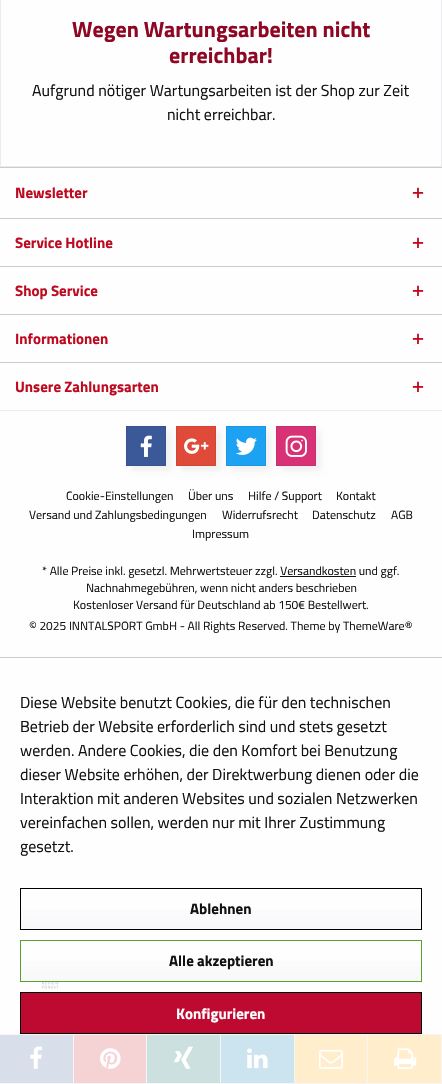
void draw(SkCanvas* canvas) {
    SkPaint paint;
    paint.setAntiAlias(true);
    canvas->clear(0xFFFEFEFE);
    paint.setStyle(SkPaint::kStroke_Style);
    paint.setStrokeWidth(1);
    paint.setColor(0xFFEAEAF0);
    canvas->drawRect(SkRect::MakeXYWH(0.5f, -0.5f, 441, 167), paint);
    SkFont font1(fontMgr->matchFamilyStyle("Titillium Web", SkFontStyle::Bold()), 22);
    font1.setSubpixel(true);
    paint.setStyle(SkPaint::kFill_Style);
    paint.setColor(0xFF8E0724);
    canvas->drawString("Wegen Wartungsarbeiten nicht", 72, 37, font1, paint);
    canvas->drawString("erreichbar!", 169, 63, font1, paint);
    SkFont font2(fontMgr->matchFamilyStyle("Titillium Web", SkFontStyle::Normal()), 16);
    font2.setSubpixel(true);
    paint.setColor(0xFF111111);
    canvas->drawString("Aufgrund nötiger Wartungsarbeiten ist der Shop zur Zeit", 32, 96, font2, paint);
    canvas->drawString("nicht erreichbar.", 167, 120, font2, paint);
    paint.setColor(0xFFCCCCCC);
    canvas->drawRect(SkRect::MakeXYWH(0, 167, 442, 1), paint);
    SkFont font3(fontMgr->matchFamilyStyle("Titillium Web", SkFontStyle::Bold()), 15);
    font3.setSubpixel(true);
    paint.setColor(0xFFBE0A21);
    canvas->drawString("Newsletter", 15, 198, font3, paint);
    canvas->drawImageRect(SkImages::DeferredFromEncodedData(SkData::MakeFromFileName("img1.png")), SkRect::MakeXYWH(412, 187, 12, 12), SkSamplingOptions());
    paint.setColor(0xFFCCCCCC);
    canvas->drawRect(SkRect::MakeXYWH(0, 218, 442, 1), paint);
    paint.setColor(0xFFBE0A21);
    canvas->drawString("Service Hotline", 15, 248, font3, paint);
    canvas->drawImageRect(SkImages::DeferredFromEncodedData(SkData::MakeFromFileName("img1.png")), SkRect::MakeXYWH(412, 237, 12, 12), SkSamplingOptions());
    paint.setColor(0xFFCCCCCC);
    canvas->drawRect(SkRect::MakeXYWH(0, 266, 442, 1), paint);
    paint.setColor(0xFFBE0A21);
    canvas->drawString("Shop Service", 15, 296, font3, paint);
    canvas->drawImageRect(SkImages::DeferredFromEncodedData(SkData::MakeFromFileName("img1.png")), SkRect::MakeXYWH(412, 285, 12, 12), SkSamplingOptions());
    paint.setColor(0xFFCCCCCC);
    canvas->drawRect(SkRect::MakeXYWH(0, 314, 442, 1), paint);
    paint.setColor(0xFFBE0A21);
    canvas->drawString("Informationen", 15, 344, font3, paint);
    canvas->drawImageRect(SkImages::DeferredFromEncodedData(SkData::MakeFromFileName("img1.png")), SkRect::MakeXYWH(412, 333, 12, 12), SkSamplingOptions());
    paint.setColor(0xFFCCCCCC);
    canvas->drawRect(SkRect::MakeXYWH(0, 362, 442, 1), paint);
    paint.setColor(0xFFBE0A21);
    canvas->drawString("Unsere Zahlungsarten", 15, 392, font3, paint);
    canvas->drawImageRect(SkImages::DeferredFromEncodedData(SkData::MakeFromFileName("img1.png")), SkRect::MakeXYWH(412, 381, 12, 12), SkSamplingOptions());
    paint.setColor(0xFFEAEAF0);
    canvas->drawRect(SkRect::MakeXYWH(0, 410, 442, 1), paint);
    paint.setColor(0x0D000000);
    paint.setMaskFilter(SkMaskFilter::MakeBlur(kNormal_SkBlurStyle, 2.5f));
    canvas->drawRect(SkRect::MakeXYWH(131, 431, 40, 40), paint);
    paint.setMaskFilter(nullptr);
    paint.setColor(0xFF3B5998);
    canvas->drawRect(SkRect::MakeXYWH(127, 427, 38, 38), paint);
    canvas->drawImageRect(SkImages::DeferredFromEncodedData(SkData::MakeFromFileName("img2.png")), SkRect::MakeXYWH(140, 435, 12, 22), SkSamplingOptions());
    paint.setStyle(SkPaint::kStroke_Style);
    paint.setColor(0xFF37538D);
    canvas->drawRect(SkRect::MakeXYWH(126.5f, 426.5f, 39, 39), paint);
    paint.setStyle(SkPaint::kFill_Style);
    paint.setColor(0x0D000000);
    paint.setMaskFilter(SkMaskFilter::MakeBlur(kNormal_SkBlurStyle, 2.5f));
    canvas->drawRect(SkRect::MakeXYWH(181, 431, 40, 40), paint);
    paint.setMaskFilter(nullptr);
    paint.setColor(0xFFE04A39);
    canvas->drawRect(SkRect::MakeXYWH(177, 427, 38, 38), paint);
    canvas->drawImageRect(SkImages::DeferredFromEncodedData(SkData::MakeFromFileName("img3.png")), SkRect::MakeXYWH(184, 438, 25, 16), SkSamplingOptions());
    paint.setStyle(SkPaint::kStroke_Style);
    paint.setColor(0xFFD04535);
    canvas->drawRect(SkRect::MakeXYWH(176.5f, 426.5f, 39, 39), paint);
    paint.setStyle(SkPaint::kFill_Style);
    paint.setColor(0x0D000000);
    paint.setMaskFilter(SkMaskFilter::MakeBlur(kNormal_SkBlurStyle, 2.5f));
    canvas->drawRect(SkRect::MakeXYWH(231, 431, 40, 40), paint);
    paint.setMaskFilter(nullptr);
    paint.setColor(0xFF1DA1F2);
    canvas->drawRect(SkRect::MakeXYWH(227, 427, 38, 38), paint);
    canvas->drawImageRect(SkImages::DeferredFromEncodedData(SkData::MakeFromFileName("img4.png")), SkRect::MakeXYWH(235, 437, 22, 18), SkSamplingOptions());
    paint.setStyle(SkPaint::kStroke_Style);
    paint.setColor(0xFF1B96E1);
    canvas->drawRect(SkRect::MakeXYWH(226.5f, 426.5f, 39, 39), paint);
    paint.setStyle(SkPaint::kFill_Style);
    paint.setColor(0x0D000000);
    paint.setMaskFilter(SkMaskFilter::MakeBlur(kNormal_SkBlurStyle, 2.5f));
    canvas->drawRect(SkRect::MakeXYWH(281, 431, 40, 40), paint);
    paint.setMaskFilter(nullptr);
    paint.setColor(0xFFD93175);
    canvas->drawRect(SkRect::MakeXYWH(277, 427, 38, 38), paint);
    canvas->drawImageRect(SkImages::DeferredFromEncodedData(SkData::MakeFromFileName("img5.png")), SkRect::MakeXYWH(285, 435, 22, 22), SkSamplingOptions());
    paint.setStyle(SkPaint::kStroke_Style);
    paint.setColor(0xFFCA2E6D);
    canvas->drawRect(SkRect::MakeXYWH(276.5f, 426.5f, 39, 39), paint);
    SkFont font4(fontMgr->matchFamilyStyle("Titillium Web", SkFontStyle::Normal()), 12);
    font4.setSubpixel(true);
    paint.setStyle(SkPaint::kFill_Style);
    paint.setColor(0xFF111111);
    canvas->drawString("Cookie-Einstellungen", 66, 500, font4, paint);
    canvas->drawString("Über uns", 188, 500, font4, paint);
    canvas->drawString("Hilfe / Support", 248, 500, font4, paint);
    canvas->drawString("Kontakt", 336, 500, font4, paint);
    canvas->drawString("Versand und Zahlungsbedingungen", 29, 519, font4, paint);
    canvas->drawString("Widerrufsrecht", 222, 519, font4, paint);
    canvas->drawString("Datenschutz", 312, 519, font4, paint);
    canvas->drawString("AGB", 391, 519, font4, paint);
    canvas->drawString("Impressum", 192, 538, font4, paint);
    canvas->drawString("* Alle Preise inkl. gesetzl. Mehrwertsteuer zzgl. Versandkosten und ggf.", 42, 575, font4, paint);
    canvas->drawRect(SkRect::MakeXYWH(280, 576, 76, 1), paint);
    canvas->drawString("Nachnahmegebühren, wenn nicht anders beschrieben", 86, 592, font4, paint);
    canvas->drawString("Kostenloser Versand für Deutschland ab 150€ Bestellwert.", 73, 609, font4, paint);
    canvas->drawString("© 2025 INNTALSPORT GmbH - All Rights Reserved. Theme by ThemeWare®", 29, 630, font4, paint);
    paint.setColor(0xFFD8DEEA);
    canvas->drawRect(SkRect::MakeXYWH(0, 1035, 73, 48), paint);
    paint.setColor(0xFFF6F6F6);
    canvas->drawRect(SkRect::MakeXYWH(0, 1034, 442, 1), paint);
    canvas->drawRect(SkRect::MakeXYWH(73, 1034, 1, 50), paint);
    canvas->drawRect(SkRect::MakeXYWH(0, 1083, 74, 1), paint);
    canvas->drawImageRect(SkImages::DeferredFromEncodedData(SkData::MakeFromFileName("img6.png")), SkRect::MakeXYWH(30, 1046, 12, 23), SkSamplingOptions());
    paint.setColor(0xFFF5D2D4);
    canvas->drawRect(SkRect::MakeXYWH(74, 1035, 72, 48), paint);
    paint.setColor(0xFFF6F6F6);
    canvas->drawRect(SkRect::MakeXYWH(146, 1034, 1, 50), paint);
    canvas->drawRect(SkRect::MakeXYWH(74, 1083, 73, 1), paint);
    canvas->drawImageRect(SkImages::DeferredFromEncodedData(SkData::MakeFromFileName("img7.png")), SkRect::MakeXYWH(100, 1048, 21, 21), SkSamplingOptions());
    paint.setColor(0xFFCCE0E0);
    canvas->drawRect(SkRect::MakeXYWH(147, 1035, 73, 48), paint);
    paint.setColor(0xFFF6F6F6);
    canvas->drawRect(SkRect::MakeXYWH(220, 1034, 1, 50), paint);
    canvas->drawRect(SkRect::MakeXYWH(147, 1083, 74, 1), paint);
    canvas->drawImageRect(SkImages::DeferredFromEncodedData(SkData::MakeFromFileName("img8.png")), SkRect::MakeXYWH(174, 1046, 19, 23), SkSamplingOptions());
    paint.setColor(0xFFCCE4F0);
    canvas->drawRect(SkRect::MakeXYWH(221, 1035, 73, 48), paint);
    paint.setColor(0xFFF6F6F6);
    canvas->drawRect(SkRect::MakeXYWH(294, 1034, 1, 50), paint);
    canvas->drawRect(SkRect::MakeXYWH(221, 1083, 74, 1), paint);
    canvas->drawImageRect(SkImages::DeferredFromEncodedData(SkData::MakeFromFileName("img9.png")), SkRect::MakeXYWH(247, 1048, 21, 21), SkSamplingOptions());
    paint.setColor(0xFFFFEDCC);
    canvas->drawRect(SkRect::MakeXYWH(295, 1035, 72, 48), paint);
    paint.setColor(0xFFF6F6F6);
    canvas->drawRect(SkRect::MakeXYWH(367, 1034, 1, 50), paint);
    canvas->drawRect(SkRect::MakeXYWH(295, 1083, 73, 1), paint);
    canvas->drawImageRect(SkImages::DeferredFromEncodedData(SkData::MakeFromFileName("img10.png")), SkRect::MakeXYWH(319, 1049, 24, 20), SkSamplingOptions());
    paint.setColor(0xFFFFEDCC);
    canvas->drawRect(SkRect::MakeXYWH(368, 1035, 73, 48), paint);
    paint.setColor(0xFFF6F6F6);
    canvas->drawRect(SkRect::MakeXYWH(441, 1034, 1, 50), paint);
    canvas->drawRect(SkRect::MakeXYWH(368, 1083, 74, 1), paint);
    canvas->drawImageRect(SkImages::DeferredFromEncodedData(SkData::MakeFromFileName("img11.png")), SkRect::MakeXYWH(394, 1048, 23, 21), SkSamplingOptions());
    paint.setColor(0xFFCCCCCC);
    canvas->drawRect(SkRect::MakeXYWH(0, 657, 442, 1), paint);
    paint.setColor(0xFF111111);
    canvas->drawString("Diese Website benutzt Cookies, die für den technischen", 20, 708, font2, paint);
    canvas->drawString("Betrieb der Website erforderlich sind und stets gesetzt", 20, 732, font2, paint);
    canvas->drawString("werden. Andere Cookies, die den Komfort bei Benutzung", 20, 756, font2, paint);
    canvas->drawString("dieser Website erhöhen, der Direktwerbung dienen oder die", 20, 780, font2, paint);
    canvas->drawString("Interaktion mit anderen Websites und sozialen Netzwerken", 20, 804, font2, paint);
    canvas->drawString("vereinfachen sollen, werden nur mit Ihrer Zustimmung", 20, 828, font2, paint);
    canvas->drawString("gesetzt.", 20, 852, font2, paint);
    {
        const SkColor colors[] = {0xFFFFFFFF, 0xFFF8F8FA};
        const float stops[] = {0, 1};
        const SkPoint ends[] = {{221, 889}, {221, 929}};
        paint.setShader(SkGradientShader::MakeLinear(ends, colors, stops, 2, SkTileMode::kClamp));
        paint.setAlpha(255);
    }
    canvas->drawRect(SkRect::MakeXYWH(21, 909, 400, 20), paint);
    paint.setStyle(SkPaint::kStroke_Style);
    paint.setShader(nullptr);
    paint.setColor(0xFF000000);
    canvas->drawRect(SkRect::MakeXYWH(20.5f, 888.5f, 401, 41), paint);
    paint.setStyle(SkPaint::kFill_Style);
    paint.setColor(0xFF111111);
    canvas->drawString("Ablehnen", 190, 914, font3, paint);
    {
        const SkColor colors[] = {0xFFFFFFFF, 0xFFF8F8FA};
        const float stops[] = {0, 1};
        const SkPoint ends[] = {{221, 941}, {221, 981}};
        paint.setShader(SkGradientShader::MakeLinear(ends, colors, stops, 2, SkTileMode::kClamp));
        paint.setAlpha(255);
    }
    canvas->drawRect(SkRect::MakeXYWH(21, 961, 400, 20), paint);
    paint.setStyle(SkPaint::kStroke_Style);
    paint.setShader(nullptr);
    paint.setColor(0xFF5AA02C);
    canvas->drawRect(SkRect::MakeXYWH(20.5f, 940.5f, 401, 41), paint);
    paint.setStyle(SkPaint::kFill_Style);
    paint.setColor(0xFF111111);
    canvas->drawString("Alle akzeptieren", 169, 966, font3, paint);
    paint.setColor(0xFFBE0A30);
    canvas->drawRect(SkRect::MakeXYWH(20.5f, 992.5f, 401, 41), paint);
    paint.setStyle(SkPaint::kStroke_Style);
    paint.setColor(0xFF000000);
    canvas->drawRect(SkRect::MakeXYWH(20.5f, 992.5f, 401, 41), paint);
    paint.setStyle(SkPaint::kFill_Style);
    paint.setColor(0xFFFFFFFF);
    canvas->drawString("Konfigurieren", 176, 1019, font3, paint);
    canvas->drawImageRect(SkImages::DeferredFromEncodedData(SkData::MakeFromFileName("img12.png")), SkRect::MakeXYWH(41, 982, 18, 7), SkSamplingOptions());
}
